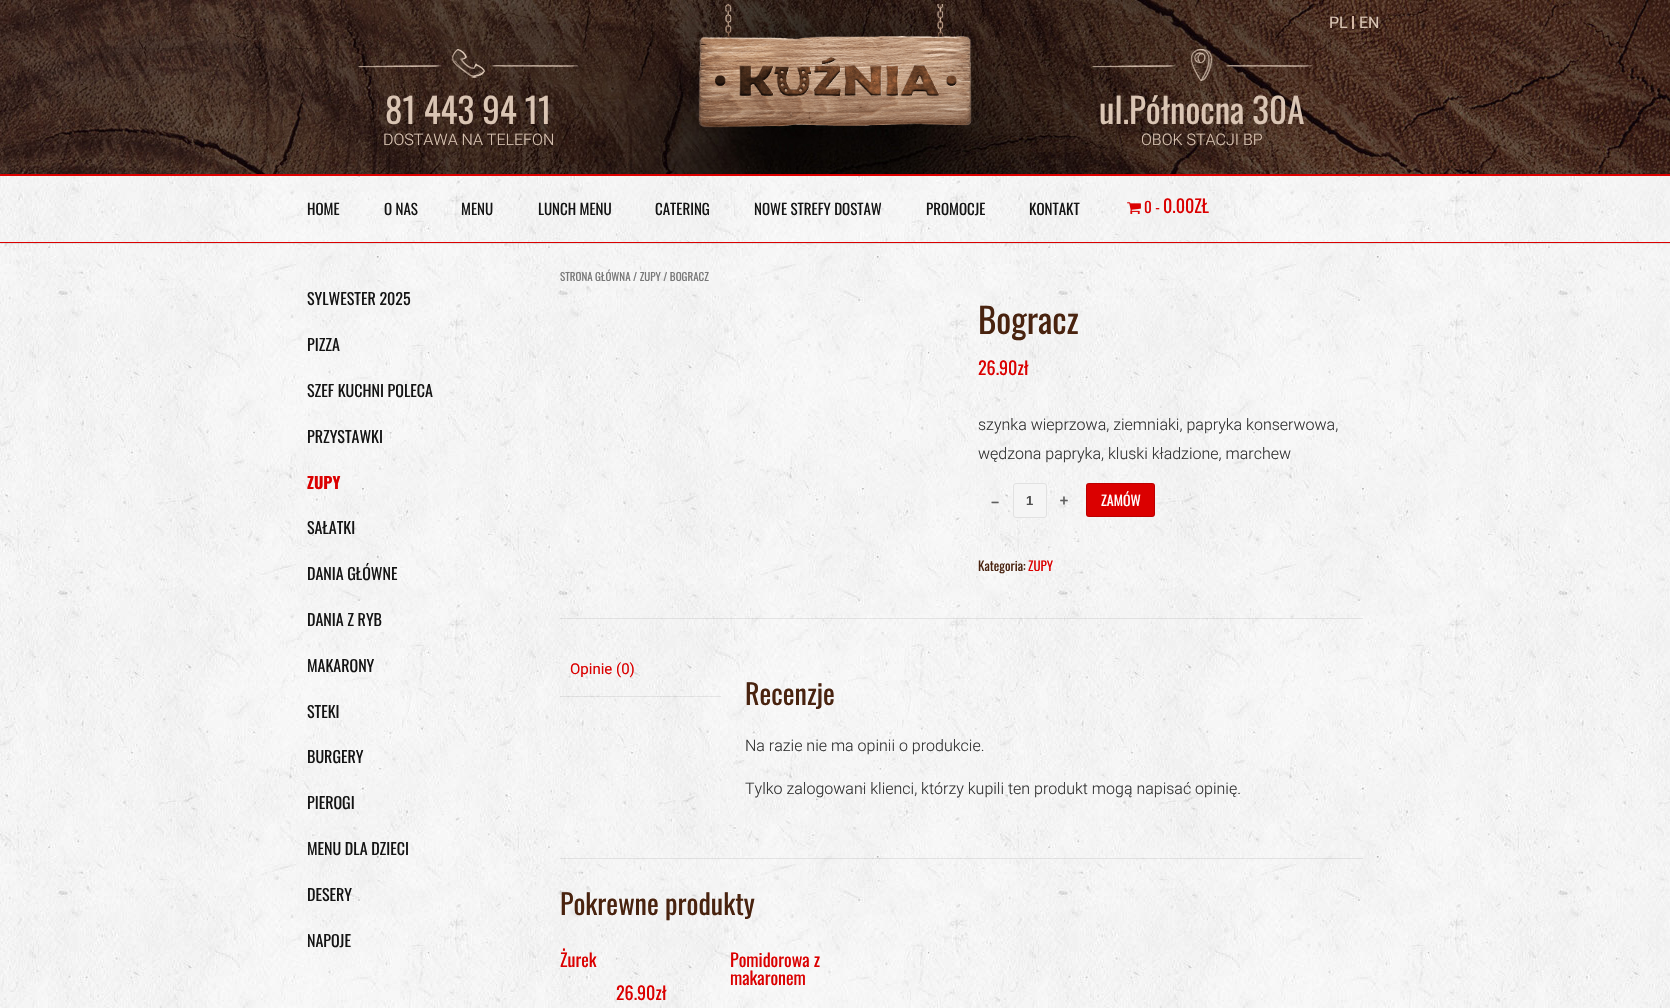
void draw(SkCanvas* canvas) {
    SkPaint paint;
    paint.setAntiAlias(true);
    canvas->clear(0xFFFFFFFF);
    canvas->drawImageRect(SkImages::DeferredFromEncodedData(SkData::MakeFromFileName("img1.png")), SkRect::MakeXYWH(0, 243, 1670, 765), SkSamplingOptions());
    canvas->drawImageRect(SkImages::DeferredFromEncodedData(SkData::MakeFromFileName("img2.png")), SkRect::MakeXYWH(0, 0, 1670, 174), SkSamplingOptions());
    paint.setColor(0x14000000);
    canvas->drawRect(SkRect::MakeXYWH(0, 243, 1670, 1), paint);
    canvas->drawRect(SkRect::MakeXYWH(0, 48, 1670, 1), paint);
    SkFont font1(fontMgr->matchFamilyStyle("Roboto", SkFontStyle::Normal()), 16);
    font1.setSubpixel(true);
    paint.setColor(0xFFDAC5B4);
    canvas->drawString("PL", 1329, 28, font1, paint);
    paint.setColor(0x14000000);
    canvas->drawRect(SkRect::MakeXYWH(1385, 16, 1, 13), paint);
    paint.setColor(0xFFD3B6A3);
    canvas->drawRect(SkRect::MakeXYWH(1352, 16, 2, 13), paint);
    paint.setColor(0xFFDAC5B4);
    canvas->drawString("EN", 1359, 28, font1, paint);
    canvas->drawImageRect(SkImages::DeferredFromEncodedData(SkData::MakeFromFileName("img3.png")), SkRect::MakeXYWH(358, 49, 220, 29), SkSamplingOptions());
    SkFont font2(fontMgr->matchFamilyStyle("Oswald", SkFontStyle::Normal()), 35);
    font2.setSubpixel(true);
    canvas->drawString("81 443 94 11", 385, 124, font2, paint);
    SkFont font3(fontMgr->matchFamilyStyle("Roboto", SkFontStyle(300, SkFontStyle::kNormal_Width, SkFontStyle::kUpright_Slant)), 16);
    font3.setSubpixel(true);
    canvas->drawString("DOSTAWA NA TELEFON", 383, 145, font3, paint);
    canvas->drawImageRect(SkImages::DeferredFromEncodedData(SkData::MakeFromFileName("img4.png")), SkRect::MakeXYWH(698, 4, 274, 124), SkSamplingOptions());
    canvas->drawImageRect(SkImages::DeferredFromEncodedData(SkData::MakeFromFileName("img5.png")), SkRect::MakeXYWH(1092, 49, 220, 32), SkSamplingOptions());
    canvas->drawString("ul.Północna 30A", 1099, 124, font2, paint);
    canvas->drawString("OBOK STACJI BP", 1141, 145, font3, paint);
    paint.setColor(0xFFDB0000);
    canvas->drawRect(SkRect::MakeXYWH(0, 174, 1670, 2), paint);
    canvas->drawImageRect(SkImages::DeferredFromEncodedData(SkData::MakeFromFileName("img6.png")), SkRect::MakeXYWH(0, 176, 1670, 66), SkSamplingOptions());
    canvas->drawRect(SkRect::MakeXYWH(0, 242, 1670, 1), paint);
    SkFont font4(fontMgr->matchFamilyStyle("Oswald", SkFontStyle::Normal()), 15);
    font4.setSubpixel(true);
    paint.setColor(0xFF141414);
    canvas->drawString("HOME", 307, 215, font4, paint);
    canvas->drawString("O NAS", 384, 215, font4, paint);
    canvas->drawString("MENU", 461, 215, font4, paint);
    canvas->drawString("LUNCH MENU", 538, 215, font4, paint);
    canvas->drawString("CATERING", 655, 215, font4, paint);
    canvas->drawString("NOWE STREFY DOSTAW", 754, 215, font4, paint);
    canvas->drawString("PROMOCJE", 926, 215, font4, paint);
    canvas->drawString("KONTAKT", 1029, 215, font4, paint);
    canvas->drawImageRect(SkImages::DeferredFromEncodedData(SkData::MakeFromFileName("img7.png")), SkRect::MakeXYWH(1127, 202, 14, 13), SkSamplingOptions());
    paint.setColor(0xFFDB0000);
    canvas->drawString("0 -", 1144, 213, font4, paint);
    SkFont font5(fontMgr->matchFamilyStyle("Oswald", SkFontStyle::Normal()), 18);
    font5.setSubpixel(true);
    canvas->drawString("0.00ZŁ", 1163, 213, font5, paint);
    SkFont font6(fontMgr->matchFamilyStyle("Oswald", SkFontStyle::Normal()), 16);
    font6.setSubpixel(true);
    paint.setColor(0xFF141414);
    canvas->drawString("SYLWESTER 2025", 307, 305, font6, paint);
    canvas->drawString("PIZZA", 307, 351, font6, paint);
    canvas->drawString("SZEF KUCHNI POLECA", 307, 397, font6, paint);
    canvas->drawString("PRZYSTAWKI", 307, 443, font6, paint);
    SkFont font7(fontMgr->matchFamilyStyle("Oswald", SkFontStyle::Bold()), 16);
    font7.setSubpixel(true);
    paint.setColor(0xFFDB0000);
    canvas->drawString("ZUPY", 307, 489, font7, paint);
    paint.setColor(0xFF141414);
    canvas->drawString("SAŁATKI", 307, 534, font6, paint);
    canvas->drawString("DANIA GŁÓWNE", 307, 580, font6, paint);
    canvas->drawString("DANIA Z RYB", 307, 626, font6, paint);
    canvas->drawString("MAKARONY", 307, 672, font6, paint);
    canvas->drawString("STEKI", 307, 718, font6, paint);
    canvas->drawString("BURGERY", 307, 763, font6, paint);
    canvas->drawString("PIEROGI", 307, 809, font6, paint);
    canvas->drawString("MENU DLA DZIECI", 307, 855, font6, paint);
    canvas->drawString("DESERY", 307, 901, font6, paint);
    canvas->drawString("NAPOJE", 307, 947, font6, paint);
    SkFont font8(fontMgr->matchFamilyStyle("Oswald", SkFontStyle::Normal()), 11);
    font8.setSubpixel(true);
    paint.setColor(0xFF777777);
    canvas->drawString("STRONA GŁÓWNA / ZUPY / BOGRACZ", 560, 281, font8, paint);
    paint.setColor(0xFF49230F);
    canvas->drawString("Bogracz", 978, 334, font2, paint);
    paint.setColor(0xFFDB0000);
    canvas->drawString("26.90zł", 978, 375, font5, paint);
    paint.setColor(0xFF333333);
    canvas->drawString("szynka wieprzowa, ziemniaki, papryka konserwowa,", 978, 430, font3, paint);
    canvas->drawString("wędzona papryka, kluski kładzione, marchew", 978, 459, font3, paint);
    SkFont font9(fontMgr->matchFamilyStyle("Raleway", SkFontStyle::Normal()), 24);
    font9.setSubpixel(true);
    paint.setColor(0xFF5E5E5E);
    canvas->drawString("-", 990, 509, font9, paint);
    paint.setColor(0xFFF5F5F5);
    canvas->drawRoundRect(SkRect::MakeXYWH(1013.5f, 483.5f, 33, 34), 2.5f, 2.5f, paint);
    paint.setStyle(SkPaint::kStroke_Style);
    paint.setStrokeWidth(1);
    paint.setColor(0xFFE1E1E1);
    canvas->drawRoundRect(SkRect::MakeXYWH(1013.5f, 483.5f, 33, 34), 2.5f, 2.5f, paint);
    SkFont font10(fontMgr->matchFamilyStyle("Liberation Sans", SkFontStyle::Bold()), 13);
    font10.setSubpixel(true);
    paint.setStyle(SkPaint::kFill_Style);
    paint.setColor(0xFF4F4F4F);
    canvas->drawString("1", 1026, 505, font10, paint);
    paint.setColor(0xFF5E5E5E);
    canvas->drawString("+", 1059, 509, font9, paint);
    paint.setColor(0xFFDB0000);
    canvas->drawRoundRect(SkRect::MakeXYWH(1086, 483, 69, 34), 3, 3, paint);
    paint.setStyle(SkPaint::kStroke_Style);
    paint.setColor(0x24000000);
    canvas->drawRoundRect(SkRect::MakeXYWH(1086.5f, 483.5f, 68, 33), 2.5f, 2.5f, paint);
    SkFont font11(fontMgr->matchFamilyStyle("Oswald", SkFontStyle::Normal()), 14);
    font11.setSubpixel(true);
    paint.setStyle(SkPaint::kFill_Style);
    paint.setColor(0xFFFFFFFF);
    canvas->drawString("ZAMÓW", 1101, 506, font11, paint);
    SkFont font12(fontMgr->matchFamilyStyle("Oswald", SkFontStyle::Normal()), 13);
    font12.setSubpixel(true);
    paint.setColor(0xFF49230F);
    canvas->drawString("Kategoria:", 978, 571, font12, paint);
    paint.setColor(0xFFDB0000);
    canvas->drawString("ZUPY", 1028, 571, font12, paint);
    paint.setColor(0x14000000);
    canvas->drawRect(SkRect::MakeXYWH(560, 618, 803, 1), paint);
    canvas->drawRect(SkRect::MakeXYWH(560, 858, 803, 1), paint);
    canvas->drawRect(SkRect::MakeXYWH(560, 696, 161, 1), paint);
    SkFont font13(fontMgr->matchFamilyStyle("Roboto", SkFontStyle::Normal()), 15);
    font13.setSubpixel(true);
    paint.setColor(0xFFDB0000);
    canvas->drawString("Opinie (0)", 570, 674, font13, paint);
    SkFont font14(fontMgr->matchFamilyStyle("Oswald", SkFontStyle::Normal()), 28);
    font14.setSubpixel(true);
    paint.setColor(0xFF49230F);
    canvas->drawString("Recenzje", 745, 705, font14, paint);
    paint.setColor(0xFF333333);
    canvas->drawString("Na razie nie ma opinii o produkcie.", 745, 751, font3, paint);
    canvas->drawString("Tylko zalogowani klienci, którzy kupili ten produkt mogą napisać opinię.", 745, 794, font3, paint);
    paint.setColor(0xFF49230F);
    canvas->drawString("Pokrewne produkty", 560, 915, font14, paint);
    paint.setColor(0xFFDB0000);
    canvas->drawString("Żurek", 560, 967, font5, paint);
    canvas->drawString("26.90zł", 616, 1000, font5, paint);
    canvas->drawString("Pomidorowa z", 730, 967, font5, paint);
    canvas->drawString("makaronem", 730, 985, font5, paint);
}
